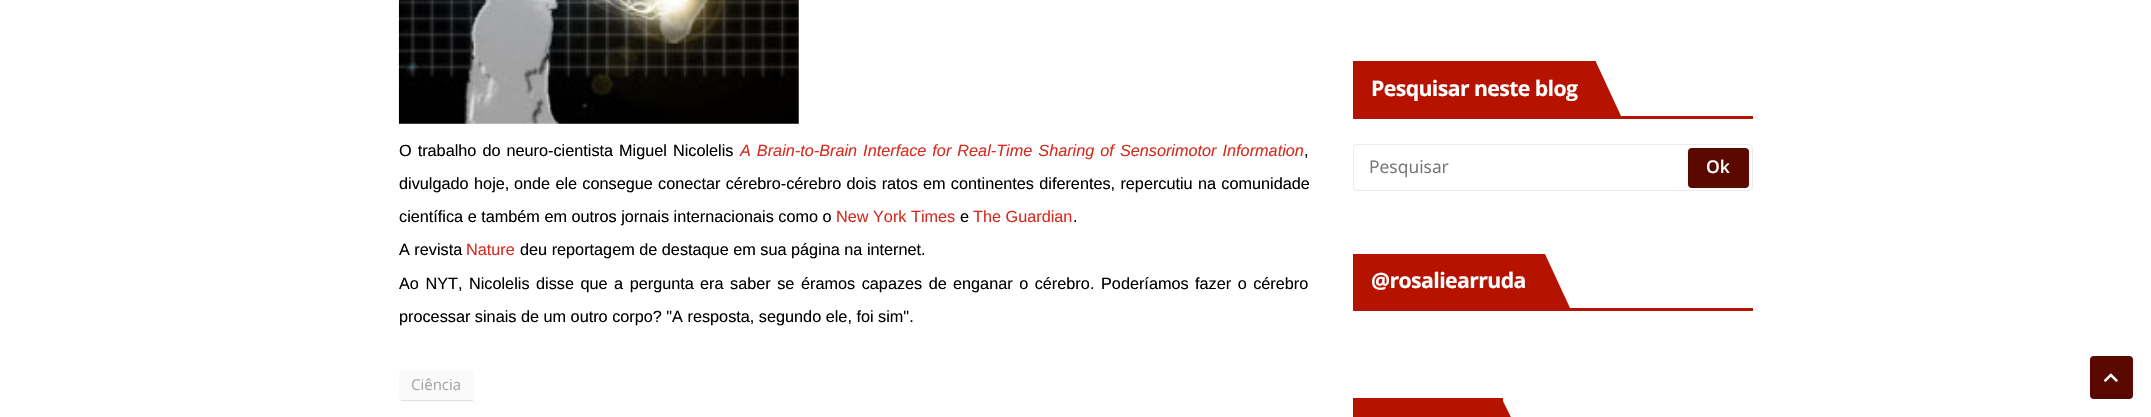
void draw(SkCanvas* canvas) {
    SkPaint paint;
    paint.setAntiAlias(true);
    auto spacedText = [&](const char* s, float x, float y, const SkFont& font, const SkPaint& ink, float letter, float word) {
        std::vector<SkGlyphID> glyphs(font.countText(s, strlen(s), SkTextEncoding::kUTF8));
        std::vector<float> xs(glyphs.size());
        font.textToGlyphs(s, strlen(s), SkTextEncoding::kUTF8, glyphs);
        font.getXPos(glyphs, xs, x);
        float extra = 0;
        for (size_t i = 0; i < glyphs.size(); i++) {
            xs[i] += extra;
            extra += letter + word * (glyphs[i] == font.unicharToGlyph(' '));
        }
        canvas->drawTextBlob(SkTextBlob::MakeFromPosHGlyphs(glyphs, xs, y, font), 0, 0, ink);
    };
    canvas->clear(0xFFFFFFFF);
    canvas->drawImageRect(SkImages::DeferredFromEncodedData(SkData::MakeFromFileName("img1.png")), SkRect::MakeXYWH(398, 0, 401, 124), SkSamplingOptions());
    SkFont font1(fontMgr->matchFamilyStyle("Liberation Sans", SkFontStyle::Normal()), 16.25f);
    font1.setSubpixel(true);
    paint.setColor(0xFF000000);
    spacedText("O trabalho do neuro-cientista Miguel Nicolelis", 399, 156, font1, paint, 0, 1.5f);
    SkFont font2(fontMgr->matchFamilyStyle("Liberation Sans", SkFontStyle::Italic()), 16.25f);
    font2.setSubpixel(true);
    paint.setColor(0xFFD52C1F);
    spacedText("A Brain-to-Brain Interface for Real-Time Sharing of Sensorimotor Information", 740, 156, font2, paint, 0, 1.5f);
    paint.setColor(0xFF000000);
    canvas->drawString(",", 1304, 156, font1, paint);
    spacedText("divulgado hoje,", 399, 189, font1, paint, 0, 1);
    spacedText("onde ele consegue conectar cérebro-cérebro dois ratos em continentes diferentes, repercutiu na comunidade", 514, 189, font1, paint, 0, 0.75f);
    canvas->drawString("científica e também em outros jornais internacionais como o", 399, 222, font1, paint);
    paint.setColor(0xFFD52C1F);
    canvas->drawString("New York Times", 836, 222, font1, paint);
    paint.setColor(0xFF000000);
    canvas->drawString("e", 960, 222, font1, paint);
    paint.setColor(0xFFD52C1F);
    canvas->drawString("The Guardian", 973, 222, font1, paint);
    paint.setColor(0xFF000000);
    canvas->drawString(".", 1073, 222, font1, paint);
    canvas->drawString("A revista", 399, 255, font1, paint);
    paint.setColor(0xFFD52C1F);
    canvas->drawString("Nature", 466, 255, font1, paint);
    paint.setColor(0xFF000000);
    canvas->drawString("deu reportagem de destaque em sua página na internet.", 520, 255, font1, paint);
    spacedText("Ao NYT,", 399, 289, font1, paint, 0, 2);
    spacedText("Nicolelis disse que a pergunta", 469, 289, font1, paint, 0, 2);
    spacedText("era saber se", 700, 289, font1, paint, 0, 2);
    spacedText("éramos capazes de", 801, 289, font1, paint, 0, 2);
    spacedText("enganar o cérebro", 953, 289, font1, paint, 0, 2);
    canvas->drawString(".", 1090, 289, font1, paint);
    canvas->drawString("Poderíamos", 1101, 289, font1, paint);
    spacedText("fazer o cérebro", 1195, 289, font1, paint, 0, 2);
    canvas->drawString("processar sinais de um outro corpo? \"A resposta, segundo ele, foi sim\".", 399, 322, font1, paint);
    paint.setColor(0xFFFAFAFA);
    canvas->drawRoundRect(SkRect::MakeXYWH(399, 370, 75, 31), 4, 4, paint);
    paint.setColor(0x1A000000);
    canvas->drawRect(SkRect::MakeXYWH(401, 400, 72, 1), paint);
    SkFont font3(fontMgr->matchFamilyStyle("Open Sans", SkFontStyle::Normal()), 15);
    font3.setSubpixel(true);
    paint.setColor(0xFFA5A5A5);
    canvas->drawString("Ciência", 411, 390, font3, paint);
    paint.setColor(0xFFB51200);
    canvas->drawRect(SkRect::MakeXYWH(1353, 116, 400, 3), paint);
    canvas->drawRect(SkRect::MakeXYWH(1353, 61, 243, 55), paint);
    SkFont font4(fontMgr->matchFamilyStyle("Open Sans", SkFontStyle::Bold()), 21.25f);
    font4.setSubpixel(true);
    paint.setColor(0xFFFFFFFF);
    spacedText("Pesquisar neste blog", 1371, 96, font4, paint, -0.6f, 0);
    paint.setColor(0xFFB51200);
    canvas->drawPath(SkPathBuilder().moveTo(1596, 116).lineTo(1596, 62).lineTo(1621, 116).close().detach(), paint);
    paint.setStyle(SkPaint::kStroke_Style);
    paint.setStrokeWidth(1);
    paint.setColor(0xFFEBEBEB);
    canvas->drawRoundRect(SkRect::MakeXYWH(1353.5f, 144.5f, 399, 46), 3.5f, 3.5f, paint);
    SkFont font5(fontMgr->matchFamilyStyle("Open Sans", SkFontStyle::Normal()), 17.5f);
    font5.setSubpixel(true);
    paint.setStyle(SkPaint::kFill_Style);
    paint.setColor(0xFF757575);
    canvas->drawString("Pesquisar", 1369, 173, font5, paint);
    paint.setColor(0xFF5B0900);
    canvas->drawRoundRect(SkRect::MakeXYWH(1688, 148, 61, 40), 4, 4, paint);
    SkFont font6(fontMgr->matchFamilyStyle("Open Sans", SkFontStyle(600, SkFontStyle::kNormal_Width, SkFontStyle::kUpright_Slant)), 17.5f);
    font6.setSubpixel(true);
    paint.setColor(0xFFFFFFFF);
    canvas->drawString("Ok", 1706, 173, font6, paint);
    paint.setColor(0xFFB51200);
    canvas->drawRect(SkRect::MakeXYWH(1353, 308, 400, 3), paint);
    canvas->drawRect(SkRect::MakeXYWH(1353, 254, 192, 54), paint);
    paint.setColor(0xFFFFFFFF);
    spacedText("@rosaliearruda", 1371, 288, font4, paint, -0.6f, 0);
    paint.setColor(0xFFB51200);
    canvas->drawPath(SkPathBuilder().moveTo(1545, 308).lineTo(1545, 254).lineTo(1570, 308).close().detach(), paint);
    canvas->drawRect(SkRect::MakeXYWH(1353, 398, 150, 19), paint);
    canvas->drawPath(SkPathBuilder().moveTo(1502, 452).lineTo(1502, 399).lineTo(1528, 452).close().detach(), paint);
    paint.setColor(0xFF5B0900);
    canvas->drawRoundRect(SkRect::MakeXYWH(2090, 356, 43, 43), 4, 4, paint);
    paint.setColor(0x1A000000);
    canvas->drawRect(SkRect::MakeXYWH(2093, 396, 38, 3), paint);
    canvas->drawImageRect(SkImages::DeferredFromEncodedData(SkData::MakeFromFileName("img2.png")), SkRect::MakeXYWH(2104, 373, 14, 9), SkSamplingOptions());
}
